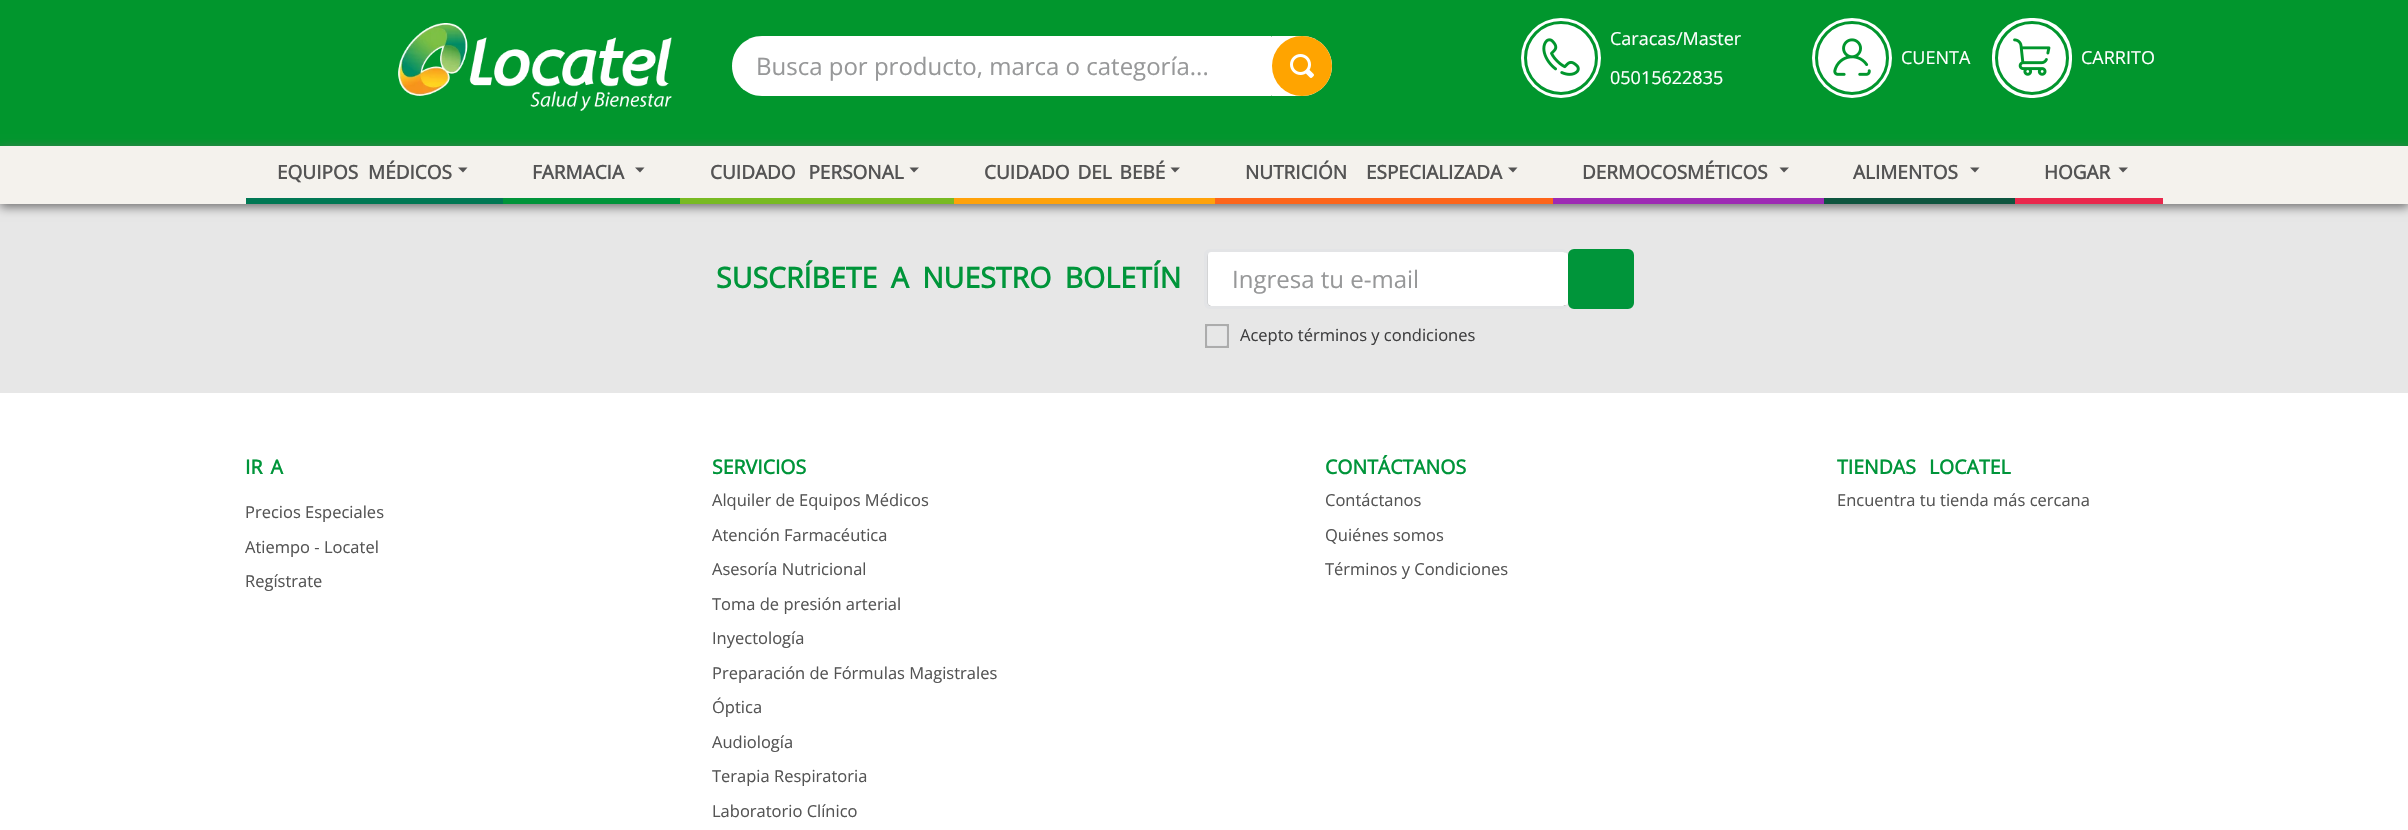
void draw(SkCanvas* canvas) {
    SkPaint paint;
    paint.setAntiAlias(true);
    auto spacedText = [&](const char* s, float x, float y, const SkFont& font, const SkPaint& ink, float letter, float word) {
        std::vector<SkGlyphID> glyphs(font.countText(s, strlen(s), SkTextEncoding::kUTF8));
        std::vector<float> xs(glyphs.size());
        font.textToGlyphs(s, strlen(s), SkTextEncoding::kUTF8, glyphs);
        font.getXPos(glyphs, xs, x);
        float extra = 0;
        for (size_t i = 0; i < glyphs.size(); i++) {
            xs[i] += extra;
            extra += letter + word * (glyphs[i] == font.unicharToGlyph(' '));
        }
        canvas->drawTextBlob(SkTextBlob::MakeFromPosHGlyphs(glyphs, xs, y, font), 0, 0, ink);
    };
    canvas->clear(0xFFFFFFFF);
    paint.setColor(0xFF01962D);
    canvas->drawRect(SkRect::MakeXYWH(0, 0, 2408, 146), paint);
    canvas->drawImageRect(SkImages::DeferredFromEncodedData(SkData::MakeFromFileName("img1.png")), SkRect::MakeXYWH(398, 23, 274, 88), SkSamplingOptions());
    paint.setColor(0xFFFFFFFF);
    canvas->drawPath(SkPathBuilder().moveTo(762, 36).lineTo(1270.5f, 36).cubicTo(1271.5f, 36, 1272, 36.5f, 1272, 37.5f).lineTo(1272, 94.5f).cubicTo(1272, 95.5f, 1271.5f, 96, 1270.5f, 96).lineTo(762, 96).cubicTo(745.5f, 96, 732, 82.5f, 732, 66).cubicTo(732, 49.5f, 745.5f, 36, 762, 36).close().detach(), paint);
    SkFont font1(fontMgr->matchFamilyStyle("Open Sans", SkFontStyle::Normal()), 24);
    font1.setSubpixel(true);
    paint.setColor(0xFF979899);
    canvas->drawString("Busca por producto, marca o categoría...", 756, 75, font1, paint);
    paint.setColor(0xFFFFFFFF);
    canvas->drawPath(SkPathBuilder().moveTo(1272, 36).lineTo(1302, 36).cubicTo(1318.5f, 36, 1332, 49.5f, 1332, 66).cubicTo(1332, 82.5f, 1318.5f, 96, 1302, 96).lineTo(1272, 96).close().detach(), paint);
    paint.setColor(0xFFFFA400);
    canvas->drawCircle(1302, 66, 30, paint);
    canvas->drawImageRect(SkImages::DeferredFromEncodedData(SkData::MakeFromFileName("img2.png")), SkRect::MakeXYWH(1290, 54, 24, 24), SkSamplingOptions());
    paint.setColor(0xFFFFFFFF);
    canvas->drawCircle(1561, 58, 40, paint);
    paint.setStyle(SkPaint::kStroke_Style);
    paint.setStrokeWidth(3);
    paint.setColor(0xFF01962D);
    canvas->drawCircle(1561, 58, 35.5f, paint);
    canvas->drawImageRect(SkImages::DeferredFromEncodedData(SkData::MakeFromFileName("img3.png")), SkRect::MakeXYWH(1542, 38, 38, 38), SkSamplingOptions());
    SkFont font2(fontMgr->matchFamilyStyle("Open Sans", SkFontStyle::Normal()), 18);
    font2.setSubpixel(true);
    paint.setStyle(SkPaint::kFill_Style);
    paint.setColor(0xFFFFFFFF);
    canvas->drawString("Caracas/Master", 1610, 45, font2, paint);
    canvas->drawString("05015622835", 1610, 84, font2, paint);
    canvas->drawCircle(1852, 58, 40, paint);
    paint.setStyle(SkPaint::kStroke_Style);
    paint.setColor(0xFF01962D);
    canvas->drawCircle(1852, 58, 35.5f, paint);
    canvas->drawImageRect(SkImages::DeferredFromEncodedData(SkData::MakeFromFileName("img4.png")), SkRect::MakeXYWH(1833, 38, 38, 38), SkSamplingOptions());
    paint.setStyle(SkPaint::kFill_Style);
    paint.setColor(0xFFFFFFFF);
    canvas->drawString("CUENTA", 1901, 64, font2, paint);
    canvas->drawRoundRect(SkRect::MakeXYWH(1992, 18, 80, 80), 38, 38, paint);
    paint.setStyle(SkPaint::kStroke_Style);
    paint.setColor(0xFF01962D);
    canvas->drawCircle(2032, 58, 35.5f, paint);
    canvas->drawImageRect(SkImages::DeferredFromEncodedData(SkData::MakeFromFileName("img5.png")), SkRect::MakeXYWH(2013, 38, 38, 38), SkSamplingOptions());
    paint.setStyle(SkPaint::kFill_Style);
    paint.setColor(0xFFFFFFFF);
    canvas->drawString("CARRITO", 2081, 64, font2, paint);
    paint.setColor(0xFFE7E7E7);
    canvas->drawRect(SkRect::MakeXYWH(0, 204, 2408, 189), paint);
    paint.setColor(0xFF6D6D6D);
    paint.setMaskFilter(SkMaskFilter::MakeBlur(kNormal_SkBlurStyle, 5));
    canvas->drawRect(SkRect::MakeXYWH(0, 149, 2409, 58), paint);
    paint.setMaskFilter(nullptr);
    paint.setColor(0xFFF4F2ED);
    canvas->drawRect(SkRect::MakeXYWH(0, 146, 2408, 58), paint);
    paint.setColor(0xFF007854);
    canvas->drawRect(SkRect::MakeXYWH(246, 198, 257, 6), paint);
    SkFont font3(fontMgr->matchFamilyStyle("Open Sans", SkFontStyle::Bold()), 19);
    font3.setSubpixel(true);
    paint.setColor(0xFF545454);
    spacedText("EQUIPOS MÉDICOS", 277, 179, font3, paint, 0, 5);
    canvas->drawPath(SkPathBuilder().moveTo(467.5f, 167.5f).lineTo(458, 167.5f).lineTo(463, 172.5f).close().detach(), paint);
    paint.setColor(0xFF00943A);
    canvas->drawRect(SkRect::MakeXYWH(503, 198, 177, 6), paint);
    paint.setColor(0xFF545454);
    canvas->drawString("FARMACIA", 532, 179, font3, paint);
    canvas->drawPath(SkPathBuilder().moveTo(644.5f, 167.5f).lineTo(635, 167.5f).lineTo(640, 172.5f).close().detach(), paint);
    paint.setColor(0xFF78BA22);
    canvas->drawRect(SkRect::MakeXYWH(680, 198, 274, 6), paint);
    paint.setColor(0xFF545454);
    spacedText("CUIDADO PERSONAL", 710, 179, font3, paint, 0, 8);
    canvas->drawPath(SkPathBuilder().moveTo(919, 167.5f).lineTo(909.5f, 167.5f).lineTo(914, 172.5f).close().detach(), paint);
    paint.setColor(0xFFFFA20A);
    canvas->drawRect(SkRect::MakeXYWH(954, 198, 261, 6), paint);
    paint.setColor(0xFF545454);
    spacedText("CUIDADO DEL BEBÉ", 984, 179, font3, paint, 0, 3);
    canvas->drawPath(SkPathBuilder().moveTo(1180, 167.5f).lineTo(1170.5f, 167.5f).lineTo(1175, 172.5f).close().detach(), paint);
    paint.setColor(0xFFFD651A);
    canvas->drawRect(SkRect::MakeXYWH(1215, 198, 338, 6), paint);
    paint.setColor(0xFF545454);
    spacedText("NUTRICIÓN ESPECIALIZADA", 1245, 179, font3, paint, 0, 14);
    canvas->drawPath(SkPathBuilder().moveTo(1517.5f, 167.5f).lineTo(1508, 167.5f).lineTo(1513, 172.5f).close().detach(), paint);
    paint.setColor(0xFF9D2BB4);
    canvas->drawRect(SkRect::MakeXYWH(1553, 198, 271, 6), paint);
    paint.setColor(0xFF545454);
    canvas->drawString("DERMOCOSMÉTICOS", 1582, 179, font3, paint);
    canvas->drawPath(SkPathBuilder().moveTo(1789, 167.5f).lineTo(1779.5f, 167.5f).lineTo(1784, 172.5f).close().detach(), paint);
    paint.setColor(0xFF0E553F);
    canvas->drawRect(SkRect::MakeXYWH(1824, 198, 191, 6), paint);
    paint.setColor(0xFF545454);
    canvas->drawString("ALIMENTOS", 1853, 179, font3, paint);
    canvas->drawPath(SkPathBuilder().moveTo(1979.5f, 167.5f).lineTo(1970, 167.5f).lineTo(1975, 172.5f).close().detach(), paint);
    paint.setColor(0xFFE9284C);
    canvas->drawRect(SkRect::MakeXYWH(2015, 198, 148, 6), paint);
    paint.setColor(0xFF545454);
    canvas->drawString("HOGAR", 2044, 179, font3, paint);
    canvas->drawPath(SkPathBuilder().moveTo(2128, 167.5f).lineTo(2118.5f, 167.5f).lineTo(2123, 172.5f).close().detach(), paint);
    SkFont font4(fontMgr->matchFamilyStyle("Open Sans", SkFontStyle::Bold()), 28.5f);
    font4.setSubpixel(true);
    paint.setColor(0xFF00953A);
    spacedText("SUSCRÍBETE A NUESTRO BOLETÍN", 716, 288, font4, paint, 0, 6);
    paint.setColor(0xFFE3E4E6);
    canvas->drawPath(SkPathBuilder(SkPathFillType::kEvenOdd).moveTo(1210, 249).lineTo(1562, 249).cubicTo(1565, 249, 1568, 252, 1568, 255).lineTo(1568, 303).cubicTo(1568, 306, 1565, 309, 1562, 309).lineTo(1210, 309).cubicTo(1207, 309, 1204, 306, 1204, 303).lineTo(1204, 255).cubicTo(1204, 252, 1207, 249, 1210, 249).close().moveTo(1210, 252).lineTo(1562, 252).cubicTo(1565, 252, 1568, 253, 1568, 255).lineTo(1568, 303).cubicTo(1568, 305, 1565, 306, 1562, 306).lineTo(1210, 306).cubicTo(1209, 306, 1208, 305, 1208, 303).lineTo(1208, 255).cubicTo(1208, 253, 1209, 252, 1210, 252).close().detach(), paint);
    canvas->save();
    canvas->clipPath(SkPathBuilder().moveTo(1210.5f, 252).lineTo(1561.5f, 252).cubicTo(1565, 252, 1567.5f, 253.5f, 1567.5f, 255).lineTo(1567.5f, 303).cubicTo(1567.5f, 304.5f, 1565, 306, 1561.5f, 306).lineTo(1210.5f, 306).cubicTo(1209, 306, 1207.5f, 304.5f, 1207.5f, 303).lineTo(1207.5f, 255).cubicTo(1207.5f, 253.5f, 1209, 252, 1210.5f, 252).close().detach(), true);
    paint.setColor(0xFF000000);
    paint.setMaskFilter(SkMaskFilter::MakeBlur(kNormal_SkBlurStyle, 1.5f));
    canvas->drawRoundRect(SkRect::MakeXYWH(1209, 254, 360, 54), 3, 3, paint);
    paint.setMaskFilter(nullptr);
    canvas->restore();
    paint.setColor(0xFFFFFFFF);
    canvas->drawPath(SkPathBuilder().moveTo(1211, 252).cubicTo(1209, 252, 1208, 253, 1208, 255).lineTo(1208, 303).cubicTo(1208, 305, 1209, 306, 1211, 306).lineTo(1562, 306).cubicTo(1565, 306, 1568, 305, 1568, 303).lineTo(1568, 255).cubicTo(1568, 253, 1565, 252, 1562, 252).close().detach(), paint);
    paint.setColor(0xFF979899);
    canvas->drawString("Ingresa tu e-mail", 1232, 288, font1, paint);
    paint.setColor(0xFF00953A);
    canvas->drawRoundRect(SkRect::MakeXYWH(1569.5f, 250.5f, 63, 57), 4.5f, 4.5f, paint);
    paint.setStyle(SkPaint::kStroke_Style);
    canvas->drawRoundRect(SkRect::MakeXYWH(1569.5f, 250.5f, 63, 57), 4.5f, 4.5f, paint);
    paint.setColor(0xFFE3E4E6);
    canvas->drawRect(SkRect::MakeXYWH(1206.5f, 325.5f, 21, 21), paint);
    paint.setStrokeWidth(2);
    paint.setColor(0xFFACACAC);
    canvas->drawRect(SkRect::MakeXYWH(1206, 325, 22, 22), paint);
    canvas->drawRoundRect(SkRect::MakeXYWH(1206, 325, 22, 22), 2, 2, paint);
    SkFont font5(fontMgr->matchFamilyStyle("Open Sans", SkFontStyle::Normal()), 16.5f);
    font5.setSubpixel(true);
    paint.setStyle(SkPaint::kFill_Style);
    paint.setColor(0xFF3F3F40);
    canvas->drawString("Acepto términos y condiciones", 1240, 341, font5, paint);
    SkFont font6(fontMgr->matchFamilyStyle("Open Sans", SkFontStyle::Bold()), 19.5f);
    font6.setSubpixel(true);
    paint.setColor(0xFF00953A);
    spacedText("IR A", 245, 474, font6, paint, 0, 3);
    paint.setColor(0xFF545454);
    canvas->drawString("Precios Especiales", 245, 518, font5, paint);
    canvas->drawString("Atiempo - Locatel", 245, 553, font5, paint);
    canvas->drawString("Regístrate", 245, 587, font5, paint);
    paint.setColor(0xFF00953A);
    canvas->drawString("SERVICIOS", 712, 474, font6, paint);
    paint.setColor(0xFF545454);
    canvas->drawString("Alquiler de Equipos Médicos", 712, 506, font5, paint);
    canvas->drawString("Atención Farmacéutica", 712, 541, font5, paint);
    canvas->drawString("Asesoría Nutricional", 712, 575, font5, paint);
    canvas->drawString("Toma de presión arterial", 712, 610, font5, paint);
    canvas->drawString("Inyectología", 712, 644, font5, paint);
    canvas->drawString("Preparación de Fórmulas Magistrales", 712, 679, font5, paint);
    canvas->drawString("Óptica", 712, 713, font5, paint);
    canvas->drawString("Audiología", 712, 748, font5, paint);
    canvas->drawString("Terapia Respiratoria", 712, 782, font5, paint);
    canvas->drawString("Laboratorio Clínico", 712, 817, font5, paint);
    paint.setColor(0xFF00953A);
    canvas->drawString("CONTÁCTANOS", 1325, 474, font6, paint);
    paint.setColor(0xFF545454);
    canvas->drawString("Contáctanos", 1325, 506, font5, paint);
    canvas->drawString("Quiénes somos", 1325, 541, font5, paint);
    canvas->drawString("Términos y Condiciones", 1325, 575, font5, paint);
    paint.setColor(0xFF00953A);
    spacedText("TIENDAS LOCATEL", 1837, 474, font6, paint, 0, 8);
    paint.setColor(0xFF545454);
    canvas->drawString("Encuentra tu tienda más cercana", 1837, 506, font5, paint);
}
